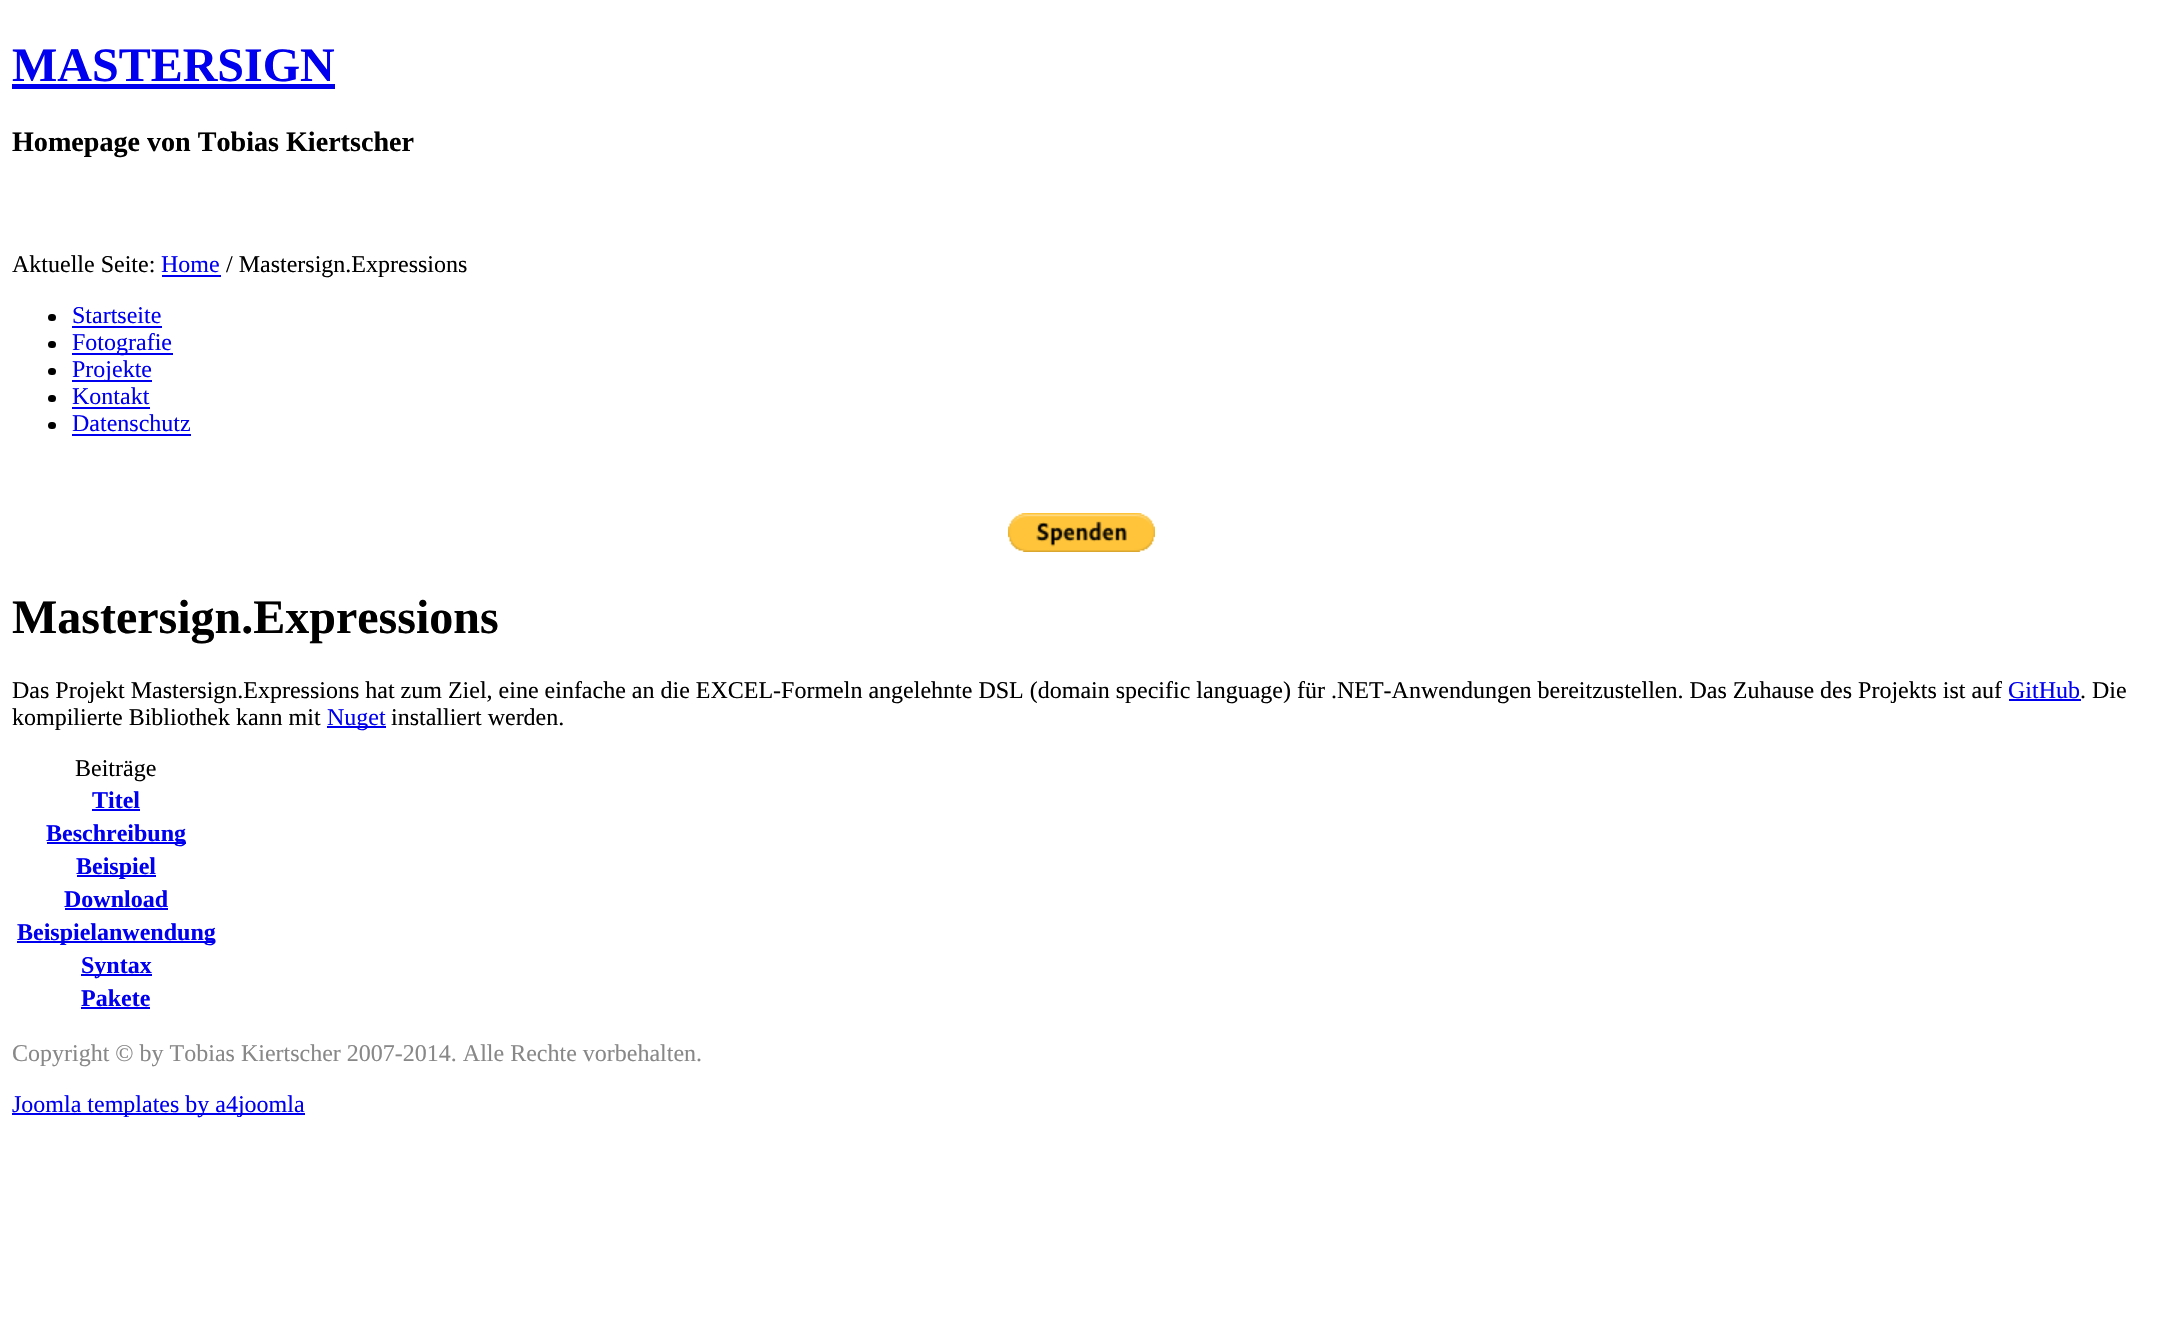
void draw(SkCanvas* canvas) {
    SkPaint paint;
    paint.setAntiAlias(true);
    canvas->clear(0xFFFFFFFF);
    SkFont font1(fontMgr->matchFamilyStyle("Liberation Serif", SkFontStyle::Bold()), 48);
    font1.setSubpixel(true);
    paint.setColor(0xFF0000EE);
    canvas->drawString("MASTERSIGN", 12, 81, font1, paint);
    canvas->drawRect(SkRect::MakeXYWH(12, 84, 323, 5), paint);
    SkFont font2(fontMgr->matchFamilyStyle("Liberation Serif", SkFontStyle::Bold()), 28.1f);
    font2.setSubpixel(true);
    paint.setColor(0xFF000000);
    canvas->drawString("Homepage von Tobias Kiertscher", 12, 151, font2, paint);
    SkFont font3(fontMgr->matchFamilyStyle("Liberation Serif", SkFontStyle::Normal()), 24);
    font3.setSubpixel(true);
    canvas->drawString("Aktuelle Seite:", 12, 272, font3, paint);
    paint.setColor(0xFF0000EE);
    canvas->drawString("Home", 161, 272, font3, paint);
    canvas->drawRect(SkRect::MakeXYWH(162, 275, 59, 2), paint);
    paint.setColor(0xFF000000);
    canvas->drawString("/ Mastersign.Expressions", 226, 272, font3, paint);
    canvas->drawRoundRect(SkRect::MakeXYWH(48, 314, 8, 7), 3.5f, 3.5f, paint);
    paint.setColor(0xFF0000EE);
    canvas->drawString("Startseite", 72, 323, font3, paint);
    canvas->drawRect(SkRect::MakeXYWH(72, 326, 90, 2), paint);
    paint.setColor(0xFF000000);
    canvas->drawRoundRect(SkRect::MakeXYWH(48, 341, 8, 7), 3.5f, 3.5f, paint);
    paint.setColor(0xFF0000EE);
    canvas->drawRect(SkRect::MakeXYWH(72, 353, 101, 2), paint);
    canvas->drawString("Fotografie", 72, 350, font3, paint);
    paint.setColor(0xFF000000);
    canvas->drawRoundRect(SkRect::MakeXYWH(48, 368, 8, 7), 3.5f, 3.5f, paint);
    paint.setColor(0xFF0000EE);
    canvas->drawRect(SkRect::MakeXYWH(72, 380, 80, 2), paint);
    canvas->drawString("Projekte", 72, 377, font3, paint);
    paint.setColor(0xFF000000);
    canvas->drawRoundRect(SkRect::MakeXYWH(48, 395, 8, 7), 3.5f, 3.5f, paint);
    paint.setColor(0xFF0000EE);
    canvas->drawString("Kontakt", 72, 404, font3, paint);
    canvas->drawRect(SkRect::MakeXYWH(72, 407, 78, 2), paint);
    paint.setColor(0xFF000000);
    canvas->drawRoundRect(SkRect::MakeXYWH(48, 422, 8, 7), 3.5f, 3.5f, paint);
    paint.setColor(0xFF0000EE);
    canvas->drawString("Datenschutz", 72, 431, font3, paint);
    canvas->drawRect(SkRect::MakeXYWH(72, 434, 119, 2), paint);
    canvas->drawImageRect(SkImages::DeferredFromEncodedData(SkData::MakeFromFileName("img1.png")), SkRect::MakeXYWH(1008, 513, 147, 39), SkSamplingOptions());
    paint.setColor(0xFF000000);
    canvas->drawString("Mastersign.Expressions", 12, 633, font1, paint);
    canvas->drawString("Das Projekt Mastersign.Expressions hat zum Ziel, eine einfache an die EXCEL-Formeln angelehnte DSL (domain specific language) für .NET-Anwendungen bereitzustellen. Das Zuhause des Projekts ist auf", 12, 698, font3, paint);
    paint.setColor(0xFF0000EE);
    canvas->drawString("GitHub", 2008, 698, font3, paint);
    canvas->drawRect(SkRect::MakeXYWH(2009, 699, 72, 2), paint);
    paint.setColor(0xFF000000);
    canvas->drawString(". Die", 2080, 698, font3, paint);
    canvas->drawString("kompilierte Bibliothek kann mit", 12, 725, font3, paint);
    paint.setColor(0xFF0000EE);
    canvas->drawRect(SkRect::MakeXYWH(327, 726, 59, 2), paint);
    canvas->drawString("Nuget", 327, 725, font3, paint);
    paint.setColor(0xFF000000);
    canvas->drawString("installiert werden.", 391, 725, font3, paint);
    canvas->drawString("Beiträge", 75, 776, font3, paint);
    SkFont font4(fontMgr->matchFamilyStyle("Liberation Serif", SkFontStyle::Bold()), 24);
    font4.setSubpixel(true);
    paint.setColor(0xFF0000EE);
    canvas->drawString("Titel", 92, 808, font4, paint);
    canvas->drawRect(SkRect::MakeXYWH(92, 809, 48, 2), paint);
    canvas->drawRect(SkRect::MakeXYWH(47, 842, 139, 2), paint);
    canvas->drawString("Beschreibung", 46, 841, font4, paint);
    canvas->drawRect(SkRect::MakeXYWH(77, 875, 79, 2), paint);
    canvas->drawString("Beispiel", 76, 874, font4, paint);
    canvas->drawString("Download", 64, 907, font4, paint);
    canvas->drawRect(SkRect::MakeXYWH(65, 908, 103, 2), paint);
    canvas->drawRect(SkRect::MakeXYWH(17, 941, 198, 2), paint);
    canvas->drawString("Beispielanwendung", 17, 940, font4, paint);
    canvas->drawRect(SkRect::MakeXYWH(81, 974, 71, 2), paint);
    canvas->drawString("Syntax", 81, 973, font4, paint);
    canvas->drawString("Pakete", 81, 1006, font4, paint);
    canvas->drawRect(SkRect::MakeXYWH(81, 1007, 69, 2), paint);
    paint.setColor(0xFF888888);
    canvas->drawString("Copyright © by Tobias Kiertscher 2007-2014. Alle Rechte vorbehalten.", 12, 1061, font3, paint);
    paint.setColor(0xFF0000EE);
    canvas->drawRect(SkRect::MakeXYWH(12, 1113, 293, 2), paint);
    canvas->drawString("Joomla templates by a4joomla", 12, 1112, font3, paint);
}
